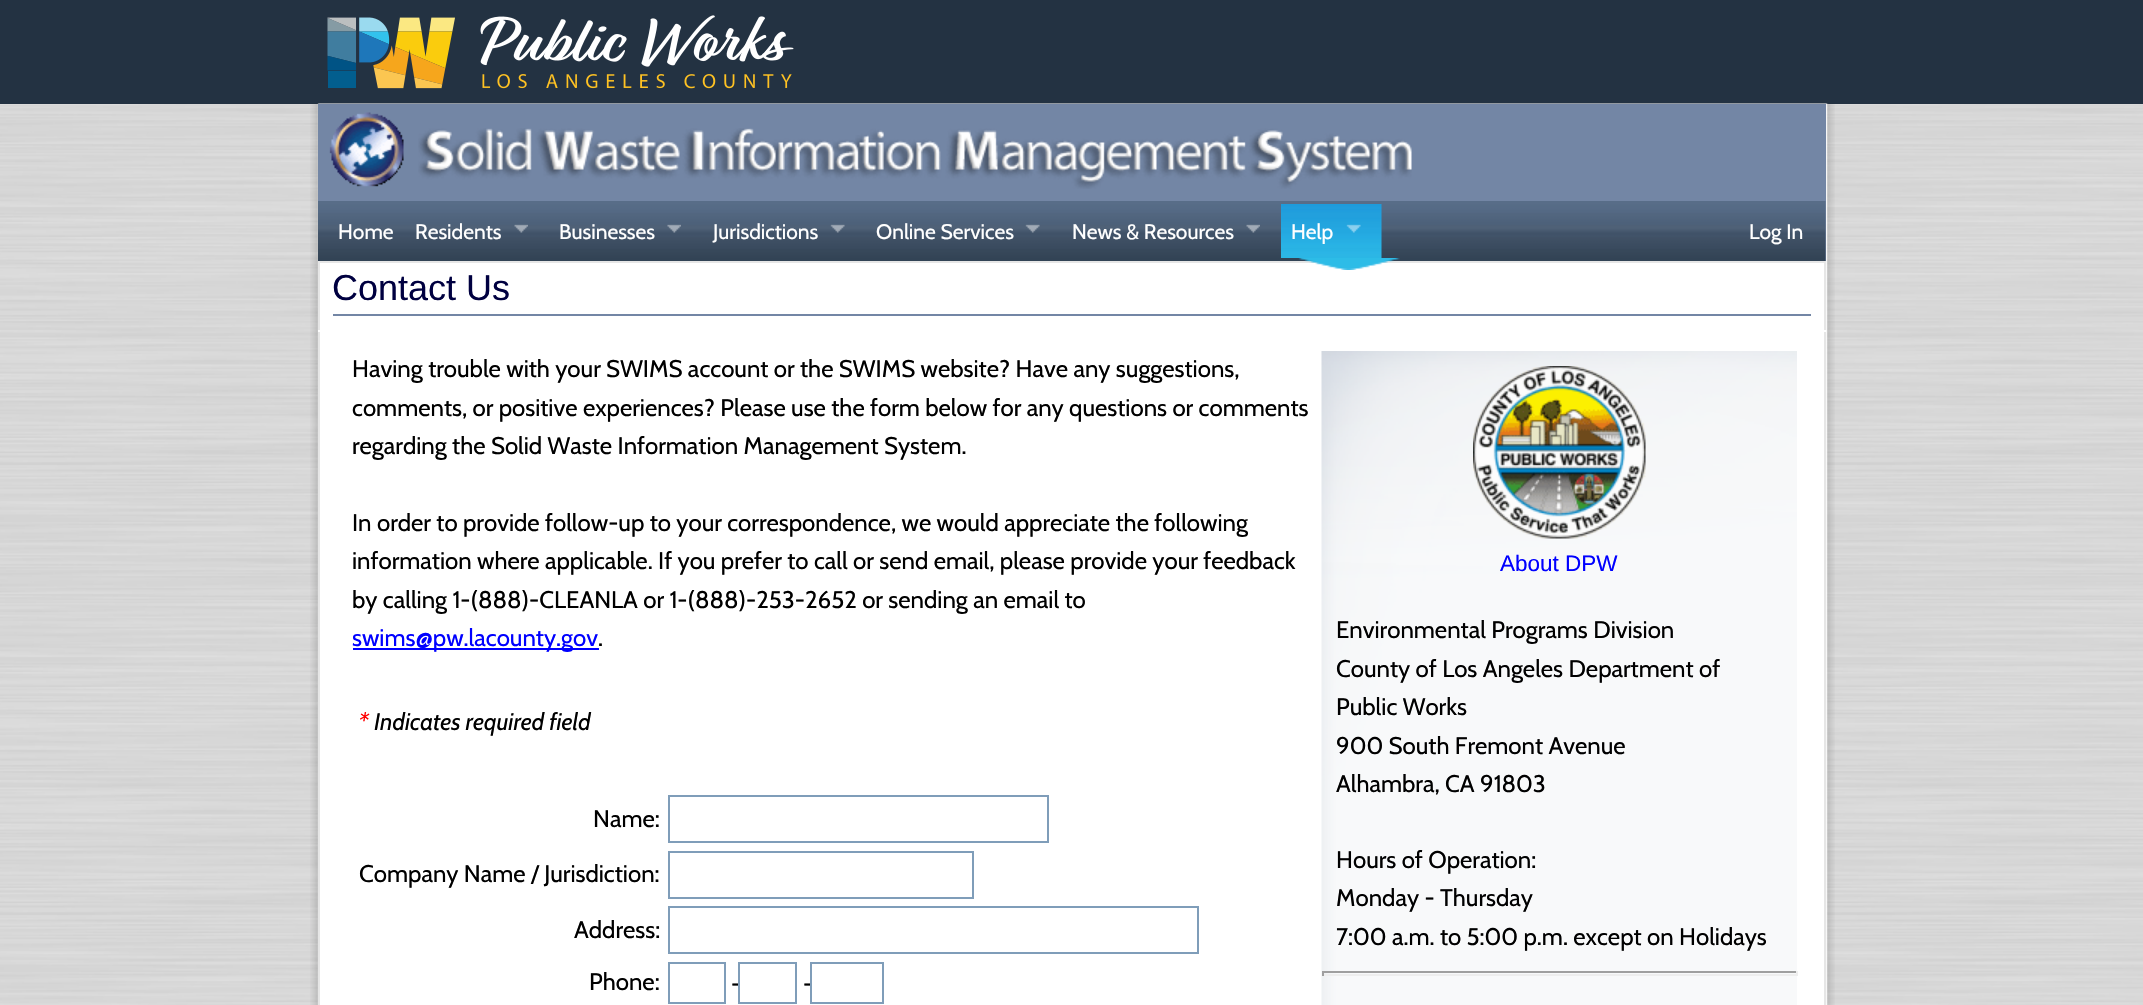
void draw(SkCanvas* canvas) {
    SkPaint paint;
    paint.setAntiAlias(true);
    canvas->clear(0xFFFFFFFF);
    canvas->drawImageRect(SkImages::DeferredFromEncodedData(SkData::MakeFromFileName("img1.png")), SkRect::MakeXYWH(0, 104, 2143, 901), SkSamplingOptions());
    paint.setColor(0xFF233242);
    canvas->drawRect(SkRect::MakeXYWH(0, 0, 2143, 104), paint);
    canvas->drawImageRect(SkImages::DeferredFromEncodedData(SkData::MakeFromFileName("img2.png")), SkRect::MakeXYWH(327, 15, 467, 74), SkSamplingOptions());
    canvas->drawImageRect(SkImages::DeferredFromEncodedData(SkData::MakeFromFileName("img3.png")), SkRect::MakeXYWH(310, 103, 1525, 902), SkSamplingOptions());
    paint.setColor(0xFF7386A5);
    canvas->drawRect(SkRect::MakeXYWH(318, 104, 1508, 157), paint);
    canvas->drawImageRect(SkImages::DeferredFromEncodedData(SkData::MakeFromFileName("img4.png")), SkRect::MakeXYWH(329, 112, 75, 75), SkSamplingOptions());
    canvas->drawImageRect(SkImages::DeferredFromEncodedData(SkData::MakeFromFileName("img5.png")), SkRect::MakeXYWH(418, 128, 994, 61), SkSamplingOptions());
    canvas->drawImageRect(SkImages::DeferredFromEncodedData(SkData::MakeFromFileName("img6.png")), SkRect::MakeXYWH(318, 201, 1508, 60), SkSamplingOptions());
    SkFont font1(fontMgr->matchFamilyStyle("Cabin", SkFontStyle::Normal()), 21);
    font1.setSubpixel(true);
    paint.setColor(0xFFFFFFFF);
    canvas->drawString("Home", 338, 239, font1, paint);
    canvas->drawString("Residents", 415, 239, font1, paint);
    canvas->drawImageRect(SkImages::DeferredFromEncodedData(SkData::MakeFromFileName("img7.png")), SkRect::MakeXYWH(514, 224, 14, 9), SkSamplingOptions());
    canvas->drawString("Businesses", 559, 239, font1, paint);
    canvas->drawImageRect(SkImages::DeferredFromEncodedData(SkData::MakeFromFileName("img8.png")), SkRect::MakeXYWH(667, 224, 14, 9), SkSamplingOptions());
    canvas->drawString("Jurisdictions", 713, 239, font1, paint);
    canvas->drawImageRect(SkImages::DeferredFromEncodedData(SkData::MakeFromFileName("img9.png")), SkRect::MakeXYWH(830, 224, 15, 9), SkSamplingOptions());
    canvas->drawString("Online Services", 876, 239, font1, paint);
    canvas->drawImageRect(SkImages::DeferredFromEncodedData(SkData::MakeFromFileName("img10.png")), SkRect::MakeXYWH(1025, 224, 15, 9), SkSamplingOptions());
    canvas->drawString("News & Resources", 1072, 239, font1, paint);
    canvas->drawImageRect(SkImages::DeferredFromEncodedData(SkData::MakeFromFileName("img11.png")), SkRect::MakeXYWH(1246, 224, 14, 9), SkSamplingOptions());
    paint.setColor(0xFFE6E6E6);
    canvas->drawRect(SkRect::MakeXYWH(318, 261, 1508, 2), paint);
    canvas->drawImageRect(SkImages::DeferredFromEncodedData(SkData::MakeFromFileName("img12.png")), SkRect::MakeXYWH(1298, 258, 102, 12), SkSamplingOptions());
    canvas->drawImageRect(SkImages::DeferredFromEncodedData(SkData::MakeFromFileName("img13.png")), SkRect::MakeXYWH(1281, 204, 101, 54), SkSamplingOptions());
    paint.setColor(0xFFFFFFFF);
    canvas->drawString("Help", 1291, 239, font1, paint);
    canvas->drawImageRect(SkImages::DeferredFromEncodedData(SkData::MakeFromFileName("img14.png")), SkRect::MakeXYWH(1346, 224, 15, 9), SkSamplingOptions());
    canvas->drawString("Log In", 1749, 239, font1, paint);
    canvas->drawRect(SkRect::MakeXYWH(318, 263, 2, 742), paint);
    paint.setColor(0xFFE6E6E6);
    canvas->drawRect(SkRect::MakeXYWH(1824, 261, 2, 69), paint);
    canvas->drawRect(SkRect::MakeXYWH(318, 261, 2, 69), paint);
    paint.setColor(0xFF7386A5);
    canvas->drawRect(SkRect::MakeXYWH(333, 314, 1478, 2), paint);
    SkFont font2(fontMgr->matchFamilyStyle("Liberation Sans", SkFontStyle::Normal()), 36);
    font2.setSubpixel(true);
    paint.setColor(0xFF000040);
    canvas->drawString("Contact Us", 332, 300, font2, paint);
    paint.setColor(0xFFE6E6E6);
    canvas->drawRect(SkRect::MakeXYWH(1824, 332, 2, 673), paint);
    canvas->drawRect(SkRect::MakeXYWH(318, 332, 2, 673), paint);
    SkFont font3(fontMgr->matchFamilyStyle("Cabin", SkFontStyle::Normal()), 24);
    font3.setSubpixel(true);
    paint.setColor(0xFF000000);
    canvas->drawString("Having trouble with your SWIMS account or the SWIMS website? Have any suggestions,", 352, 377, font3, paint);
    canvas->drawString("comments, or positive experiences? Please use the form below for any questions or comments", 352, 416, font3, paint);
    canvas->drawString("regarding the Solid Waste Information Management System.", 352, 454, font3, paint);
    canvas->drawString("In order to provide follow-up to your correspondence, we would appreciate the following", 352, 531, font3, paint);
    canvas->drawString("information where applicable. If you prefer to call or send email, please provide your feedback", 352, 569, font3, paint);
    canvas->drawString("by calling 1-(888)-CLEANLA or 1-(888)-253-2652 or sending an email to", 352, 608, font3, paint);
    paint.setColor(0xFF0000FF);
    canvas->drawRect(SkRect::MakeXYWH(353, 648, 246, 2), paint);
    canvas->drawString("swims@pw.lacounty.gov", 352, 646, font3, paint);
    paint.setColor(0xFF000000);
    canvas->drawString(".", 598, 646, font3, paint);
    SkFont font4(fontMgr->matchFamilyStyle("Cabin", SkFontStyle::Italic()), 24);
    font4.setSubpixel(true);
    paint.setColor(0xFFFF0000);
    canvas->drawString("*", 359, 730, font4, paint);
    paint.setColor(0xFF000000);
    canvas->drawString("Indicates required field", 374, 730, font4, paint);
    canvas->drawString("Name:", 593, 827, font3, paint);
    paint.setStyle(SkPaint::kStroke_Style);
    paint.setStrokeWidth(2);
    paint.setColor(0xFF7F9DB9);
    canvas->drawRect(SkRect::MakeXYWH(669, 796, 379, 46), paint);
    paint.setStyle(SkPaint::kFill_Style);
    paint.setColor(0xFF000000);
    canvas->drawString("Company Name / Jurisdiction:", 359, 882, font3, paint);
    paint.setStyle(SkPaint::kStroke_Style);
    paint.setColor(0xFF7F9DB9);
    canvas->drawRect(SkRect::MakeXYWH(669, 852, 304, 46), paint);
    paint.setStyle(SkPaint::kFill_Style);
    paint.setColor(0xFF000000);
    canvas->drawString("Address:", 574, 938, font3, paint);
    paint.setStyle(SkPaint::kStroke_Style);
    paint.setColor(0xFF7F9DB9);
    canvas->drawRect(SkRect::MakeXYWH(669, 907, 529, 46), paint);
    paint.setStyle(SkPaint::kFill_Style);
    paint.setColor(0xFF000000);
    canvas->drawString("Phone:", 589, 990, font3, paint);
    paint.setStyle(SkPaint::kStroke_Style);
    paint.setColor(0xFF7F9DB9);
    canvas->drawRect(SkRect::MakeXYWH(669, 963, 56, 40), paint);
    paint.setStyle(SkPaint::kFill_Style);
    paint.setColor(0xFF000000);
    canvas->drawString("-", 731, 992, font3, paint);
    paint.setColor(0xFFFFFFFF);
    canvas->drawRect(SkRect::MakeXYWH(740, 983, 1, 3), paint);
    paint.setStyle(SkPaint::kStroke_Style);
    paint.setColor(0xFF7F9DB9);
    canvas->drawRect(SkRect::MakeXYWH(739, 963, 57, 40), paint);
    paint.setStyle(SkPaint::kFill_Style);
    paint.setColor(0xFF000000);
    canvas->drawString("-", 803, 992, font3, paint);
    paint.setStyle(SkPaint::kStroke_Style);
    paint.setColor(0xFF7F9DB9);
    canvas->drawRect(SkRect::MakeXYWH(811, 963, 72, 40), paint);
    canvas->drawImageRect(SkImages::DeferredFromEncodedData(SkData::MakeFromFileName("img15.png")), SkRect::MakeXYWH(1321, 351, 476, 654), SkSamplingOptions());
    canvas->drawImageRect(SkImages::DeferredFromEncodedData(SkData::MakeFromFileName("img16.png")), SkRect::MakeXYWH(1473, 366, 173, 173), SkSamplingOptions());
    SkFont font5(fontMgr->matchFamilyStyle("Liberation Sans", SkFontStyle::Normal()), 22.5f);
    font5.setSubpixel(true);
    paint.setStyle(SkPaint::kFill_Style);
    paint.setColor(0xFF0000FF);
    canvas->drawString("About DPW", 1500, 571, font5, paint);
    paint.setColor(0xFF000000);
    canvas->drawString("Environmental Programs Division", 1336, 638, font3, paint);
    canvas->drawString("County of Los Angeles Department of", 1336, 677, font3, paint);
    canvas->drawString("Public Works", 1336, 715, font3, paint);
    canvas->drawString("900 South Fremont Avenue", 1336, 754, font3, paint);
    canvas->drawString("Alhambra, CA 91803", 1336, 792, font3, paint);
    canvas->drawString("Hours of Operation:", 1336, 868, font3, paint);
    canvas->drawString("Monday - Thursday", 1336, 906, font3, paint);
    canvas->drawString("7:00 a.m. to 5:00 p.m. except on Holidays", 1336, 945, font3, paint);
    paint.setColor(0xFF9F9F9F);
    canvas->drawRect(SkRect::MakeXYWH(1322, 971, 475, 2), paint);
    paint.setColor(0xFFEEEEEE);
    canvas->drawRect(SkRect::MakeXYWH(1796, 971, 2, 5), paint);
    canvas->drawRect(SkRect::MakeXYWH(1322, 974, 475, 2), paint);
    paint.setColor(0xFF9F9F9F);
    canvas->drawRect(SkRect::MakeXYWH(1322, 971, 2, 5), paint);
}
